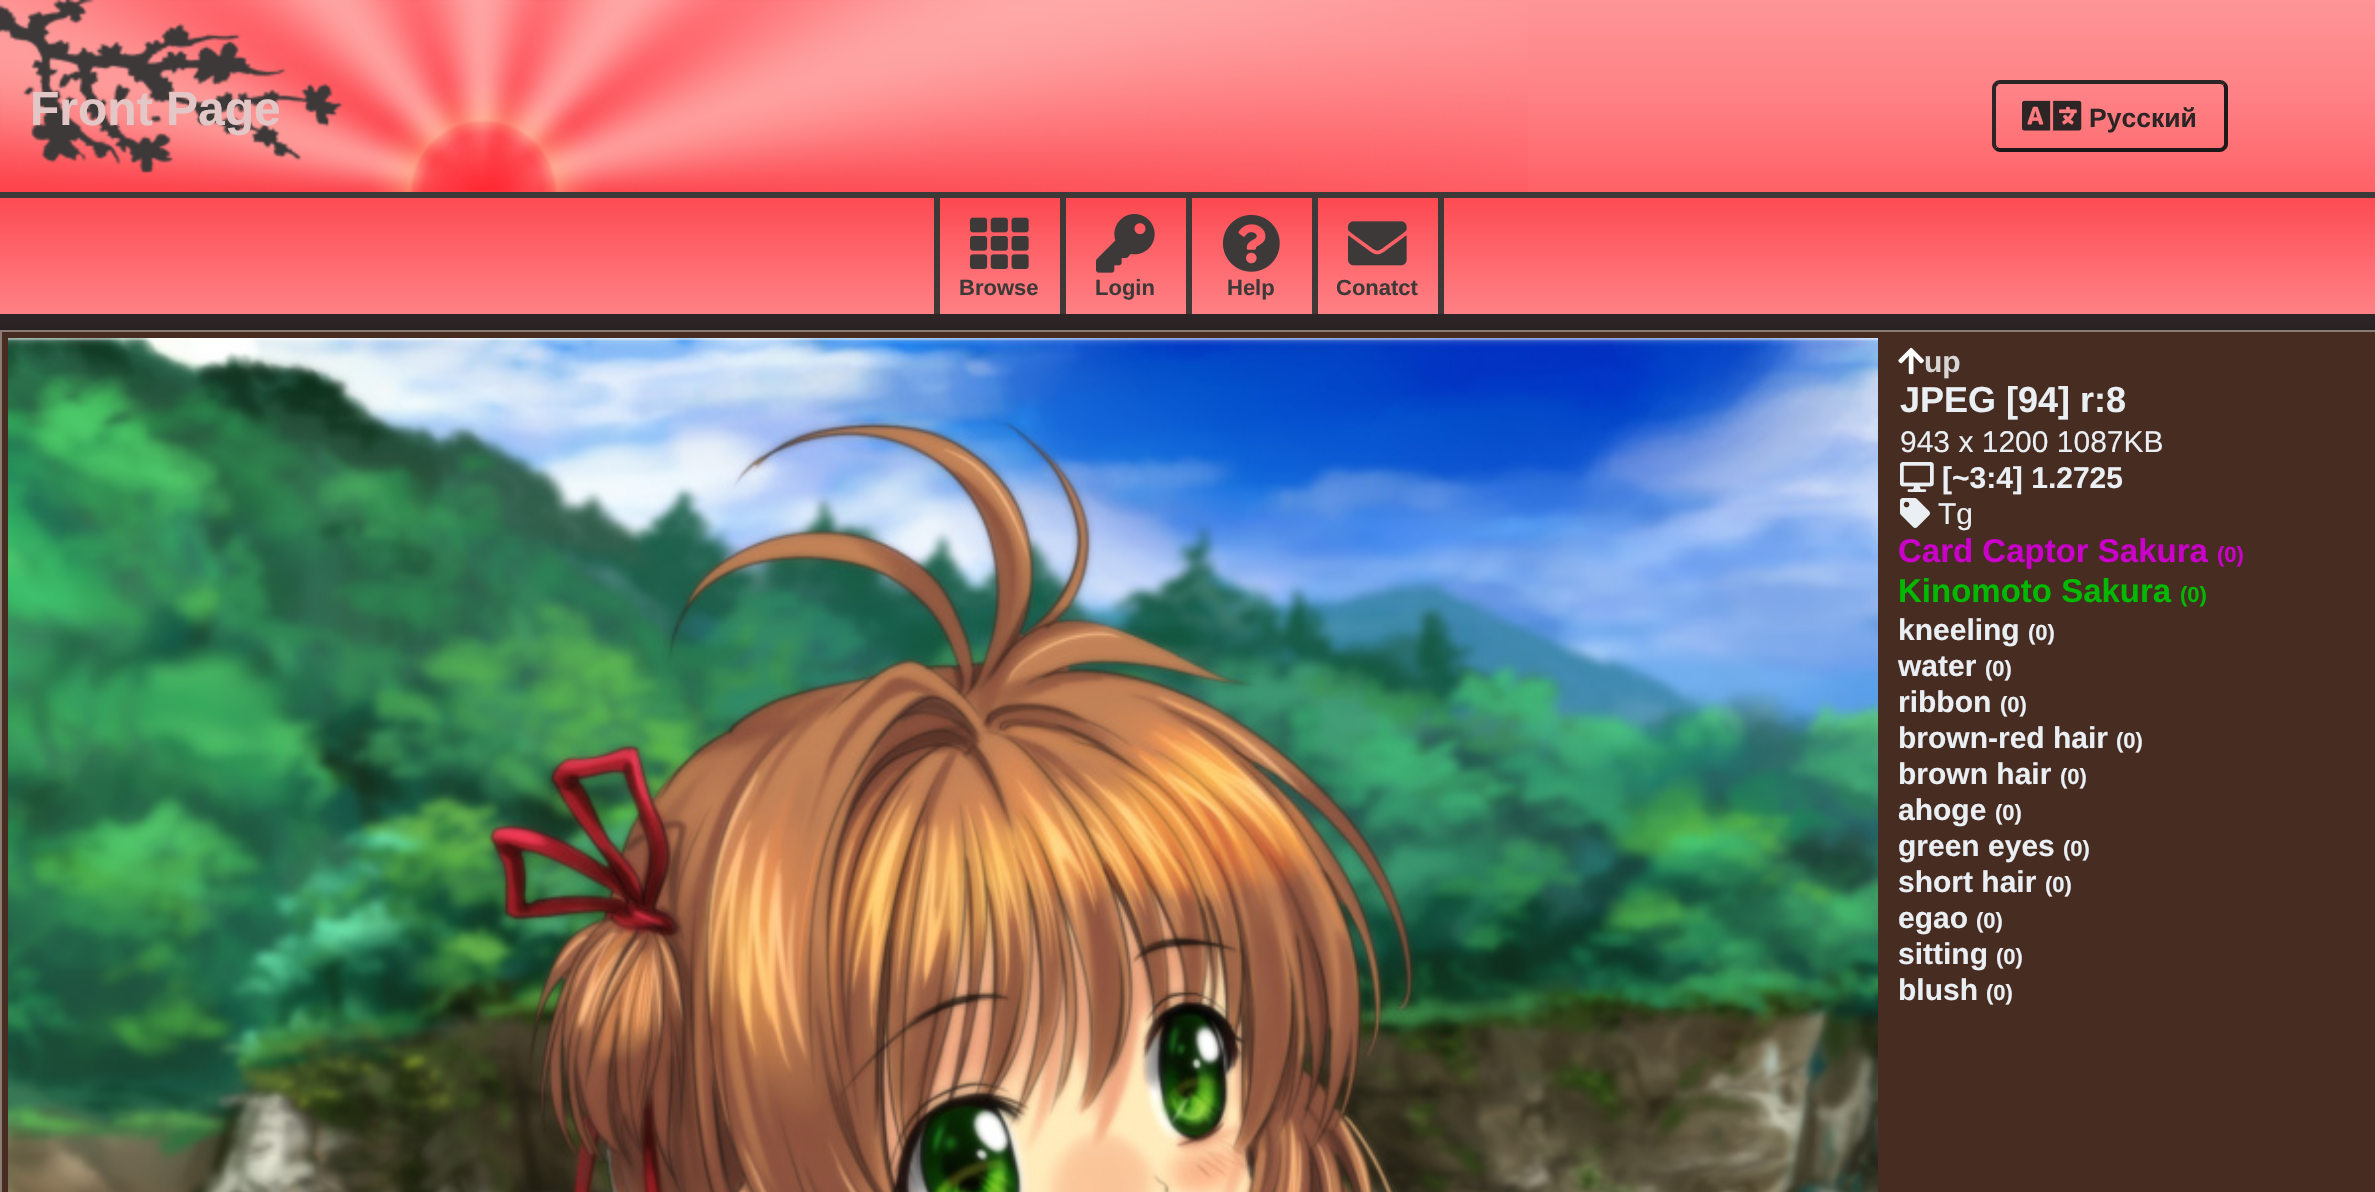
void draw(SkCanvas* canvas) {
    SkPaint paint;
    paint.setAntiAlias(true);
    canvas->clear(0xFF2D2525);
    {
        const SkColor colors[] = {0xFFFE9597, 0xFFFE8185, 0xFFFE6166};
        const float stops[] = {0, 0.5f, 1};
        const SkPoint ends[] = {{1188, 0}, {1188, 192}};
        paint.setShader(SkGradientShader::MakeLinear(ends, colors, stops, 3, SkTileMode::kClamp));
        paint.setAlpha(255);
    }
    canvas->drawRect(SkRect::MakeXYWH(0, 0, 2375, 192), paint);
    canvas->drawImageRect(SkImages::DeferredFromEncodedData(SkData::MakeFromFileName("img1.png")), SkRect::MakeXYWH(0, 0, 1528, 192), SkSamplingOptions());
    SkFont font1(fontMgr->matchFamilyStyle("Liberation Sans", SkFontStyle::Bold()), 48);
    font1.setSubpixel(true);
    paint.setShader(nullptr);
    paint.setColor(0xFFE3C7C7);
    canvas->drawString("Front Page", 30, 125, font1, paint);
    paint.setStyle(SkPaint::kStroke_Style);
    paint.setStrokeWidth(4);
    paint.setColor(0xFF1E1919);
    canvas->drawPath(SkPathBuilder().moveTo(2224, 84).cubicTo(2225.5f, 85, 2226, 86.5f, 2226, 88).lineTo(2226, 144).cubicTo(2226, 145.5f, 2225.5f, 147, 2224, 148).cubicTo(2223, 149.5f, 2221.5f, 150, 2220, 150).lineTo(2000, 150).cubicTo(1998.5f, 150, 1997, 149.5f, 1996, 148).detach(), paint);
    paint.setColor(0xFF2D2525);
    canvas->drawPath(SkPathBuilder().moveTo(1996, 148).cubicTo(1994.5f, 147, 1994, 145.5f, 1994, 144).lineTo(1994, 88).cubicTo(1994, 86.5f, 1994.5f, 85, 1996, 84).cubicTo(1997, 82.5f, 1998.5f, 82, 2000, 82).lineTo(2220, 82).cubicTo(2221.5f, 82, 2223, 82.5f, 2224, 84).detach(), paint);
    canvas->drawImageRect(SkImages::DeferredFromEncodedData(SkData::MakeFromFileName("img2.png")), SkRect::MakeXYWH(2022, 100, 60, 31), SkSamplingOptions());
    SkFont font2(fontMgr->matchFamilyStyle("Liberation Sans", SkFontStyle::Bold()), 26.5f);
    font2.setSubpixel(true);
    paint.setStyle(SkPaint::kFill_Style);
    canvas->drawString("Русский", 2089, 127, font2, paint);
    {
        const SkColor colors[] = {0xFFFD4951, 0xFFFE8185};
        const float stops[] = {0.01f, 1};
        const SkPoint ends[] = {{1188, 192}, {1188, 314}};
        paint.setShader(SkGradientShader::MakeLinear(ends, colors, stops, 2, SkTileMode::kClamp));
        paint.setAlpha(255);
    }
    canvas->drawRect(SkRect::MakeXYWH(0, 198, 2375, 116), paint);
    paint.setShader(nullptr);
    paint.setColor(0xFF3E3939);
    canvas->drawRect(SkRect::MakeXYWH(0, 192, 2375, 6), paint);
    {
        const SkColor colors[] = {0xFFFD4951, 0xFFFE8185};
        const float stops[] = {0.01f, 1};
        const SkPoint ends[] = {{1000, 198}, {1000, 314}};
        paint.setShader(SkGradientShader::MakeLinear(ends, colors, stops, 2, SkTileMode::kClamp));
        paint.setAlpha(255);
    }
    canvas->drawRect(SkRect::MakeXYWH(940, 199, 120, 26), paint);
    paint.setShader(nullptr);
    paint.setColor(0xFF3E3939);
    canvas->drawRect(SkRect::MakeXYWH(934, 198, 6, 116), paint);
    canvas->drawImageRect(SkImages::DeferredFromEncodedData(SkData::MakeFromFileName("img3.png")), SkRect::MakeXYWH(970, 217, 59, 52), SkSamplingOptions());
    SkFont font3(fontMgr->matchFamilyStyle("Liberation Sans", SkFontStyle::Bold()), 22);
    font3.setSubpixel(true);
    canvas->drawString("Browse", 959, 295, font3, paint);
    {
        const SkColor colors[] = {0xFFFD4951, 0xFFFE8185};
        const float stops[] = {0.01f, 1};
        const SkPoint ends[] = {{1126, 198}, {1126, 314}};
        paint.setShader(SkGradientShader::MakeLinear(ends, colors, stops, 2, SkTileMode::kClamp));
        paint.setAlpha(255);
    }
    canvas->drawRect(SkRect::MakeXYWH(1066, 199, 120, 26), paint);
    paint.setShader(nullptr);
    paint.setColor(0xFF3E3939);
    canvas->drawRect(SkRect::MakeXYWH(1060, 198, 6, 116), paint);
    canvas->drawImageRect(SkImages::DeferredFromEncodedData(SkData::MakeFromFileName("img4.png")), SkRect::MakeXYWH(1096, 214, 59, 59), SkSamplingOptions());
    canvas->drawString("Login", 1095, 295, font3, paint);
    {
        const SkColor colors[] = {0xFFFD4951, 0xFFFE8185};
        const float stops[] = {0.01f, 1};
        const SkPoint ends[] = {{1252, 198}, {1252, 314}};
        paint.setShader(SkGradientShader::MakeLinear(ends, colors, stops, 2, SkTileMode::kClamp));
        paint.setAlpha(255);
    }
    canvas->drawRect(SkRect::MakeXYWH(1192, 199, 120, 26), paint);
    paint.setShader(nullptr);
    paint.setColor(0xFF3E3939);
    canvas->drawRect(SkRect::MakeXYWH(1186, 198, 6, 116), paint);
    canvas->drawImageRect(SkImages::DeferredFromEncodedData(SkData::MakeFromFileName("img5.png")), SkRect::MakeXYWH(1222, 214, 58, 58), SkSamplingOptions());
    canvas->drawString("Help", 1227, 295, font3, paint);
    {
        const SkColor colors[] = {0xFFFD4951, 0xFFFE8185};
        const float stops[] = {0.01f, 1};
        const SkPoint ends[] = {{1378, 198}, {1378, 314}};
        paint.setShader(SkGradientShader::MakeLinear(ends, colors, stops, 2, SkTileMode::kClamp));
        paint.setAlpha(255);
    }
    canvas->drawRect(SkRect::MakeXYWH(1318, 199, 120, 26), paint);
    paint.setShader(nullptr);
    paint.setColor(0xFF3E3939);
    canvas->drawRect(SkRect::MakeXYWH(1438, 198, 6, 116), paint);
    canvas->drawRect(SkRect::MakeXYWH(1312, 198, 6, 116), paint);
    canvas->drawImageRect(SkImages::DeferredFromEncodedData(SkData::MakeFromFileName("img6.png")), SkRect::MakeXYWH(1348, 221, 59, 45), SkSamplingOptions());
    canvas->drawString("Conatct", 1336, 295, font3, paint);
    paint.setColor(0x59000000);
    paint.setMaskFilter(SkMaskFilter::MakeBlur(kNormal_SkBlurStyle, 5));
    canvas->drawRect(SkRect::MakeXYWH(0, 332, 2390, 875), paint);
    paint.setMaskFilter(nullptr);
    paint.setColor(0xFF472C21);
    canvas->drawRect(SkRect::MakeXYWH(1, 331, 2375, 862), paint);
    paint.setStyle(SkPaint::kStroke_Style);
    paint.setStrokeWidth(2);
    paint.setColor(0xFF8B7B75);
    canvas->drawRect(SkRect::MakeXYWH(1, 331, 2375, 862), paint);
    canvas->drawImageRect(SkImages::DeferredFromEncodedData(SkData::MakeFromFileName("img7.png")), SkRect::MakeXYWH(8, 338, 1870, 854), SkSamplingOptions());
    canvas->drawImageRect(SkImages::DeferredFromEncodedData(SkData::MakeFromFileName("img8.png")), SkRect::MakeXYWH(1898, 347, 26, 28), SkSamplingOptions());
    SkFont font4(fontMgr->matchFamilyStyle("Liberation Sans", SkFontStyle::Bold()), 30);
    font4.setSubpixel(true);
    paint.setStyle(SkPaint::kFill_Style);
    paint.setColor(0xFFD8D5D5);
    canvas->drawString("up", 1924, 372, font4, paint);
    SkFont font5(fontMgr->matchFamilyStyle("Liberation Sans", SkFontStyle::Bold()), 36);
    font5.setSubpixel(true);
    paint.setColor(0xFFEAEFF4);
    canvas->drawString("JPEG [94] r:8", 1900, 412, font5, paint);
    SkFont font6(fontMgr->matchFamilyStyle("Liberation Sans", SkFontStyle::Normal()), 30);
    font6.setSubpixel(true);
    canvas->drawString("943 x 1200 1087KB", 1900, 452, font6, paint);
    canvas->drawImageRect(SkImages::DeferredFromEncodedData(SkData::MakeFromFileName("img9.png")), SkRect::MakeXYWH(1900, 462, 34, 30), SkSamplingOptions());
    canvas->drawString("[~3:4] 1.2725", 1942, 488, font4, paint);
    canvas->drawImageRect(SkImages::DeferredFromEncodedData(SkData::MakeFromFileName("img10.png")), SkRect::MakeXYWH(1900, 498, 30, 30), SkSamplingOptions());
    canvas->drawString("Tg", 1938, 524, font6, paint);
    SkFont font7(fontMgr->matchFamilyStyle("Liberation Sans", SkFontStyle::Bold()), 33);
    font7.setSubpixel(true);
    paint.setColor(0xFFCA00CA);
    canvas->drawString("Card Captor Sakura", 1898, 562, font7, paint);
    canvas->drawString("(0)", 2217, 562, font3, paint);
    paint.setColor(0xFF00B900);
    canvas->drawString("Kinomoto Sakura", 1898, 602, font7, paint);
    canvas->drawString("(0)", 2180, 602, font3, paint);
    paint.setColor(0xFFEAEFF4);
    canvas->drawString("kneeling", 1898, 640, font4, paint);
    canvas->drawString("(0)", 2028, 640, font3, paint);
    canvas->drawString("water", 1898, 676, font4, paint);
    canvas->drawString("(0)", 1985, 676, font3, paint);
    canvas->drawString("ribbon", 1898, 712, font4, paint);
    canvas->drawString("(0)", 2000, 712, font3, paint);
    canvas->drawString("brown-red hair", 1898, 748, font4, paint);
    canvas->drawString("(0)", 2116, 748, font3, paint);
    canvas->drawString("brown hair", 1898, 784, font4, paint);
    canvas->drawString("(0)", 2060, 784, font3, paint);
    canvas->drawString("ahoge", 1898, 820, font4, paint);
    canvas->drawString("(0)", 1995, 820, font3, paint);
    canvas->drawString("green eyes", 1898, 856, font4, paint);
    canvas->drawString("(0)", 2063, 856, font3, paint);
    canvas->drawString("short hair", 1898, 892, font4, paint);
    canvas->drawString("(0)", 2045, 892, font3, paint);
    canvas->drawString("egao", 1898, 928, font4, paint);
    canvas->drawString("(0)", 1976, 928, font3, paint);
    canvas->drawString("sitting", 1898, 964, font4, paint);
    canvas->drawString("(0)", 1996, 964, font3, paint);
    canvas->drawString("blush", 1898, 1000, font4, paint);
    canvas->drawString("(0)", 1986, 1000, font3, paint);
}
